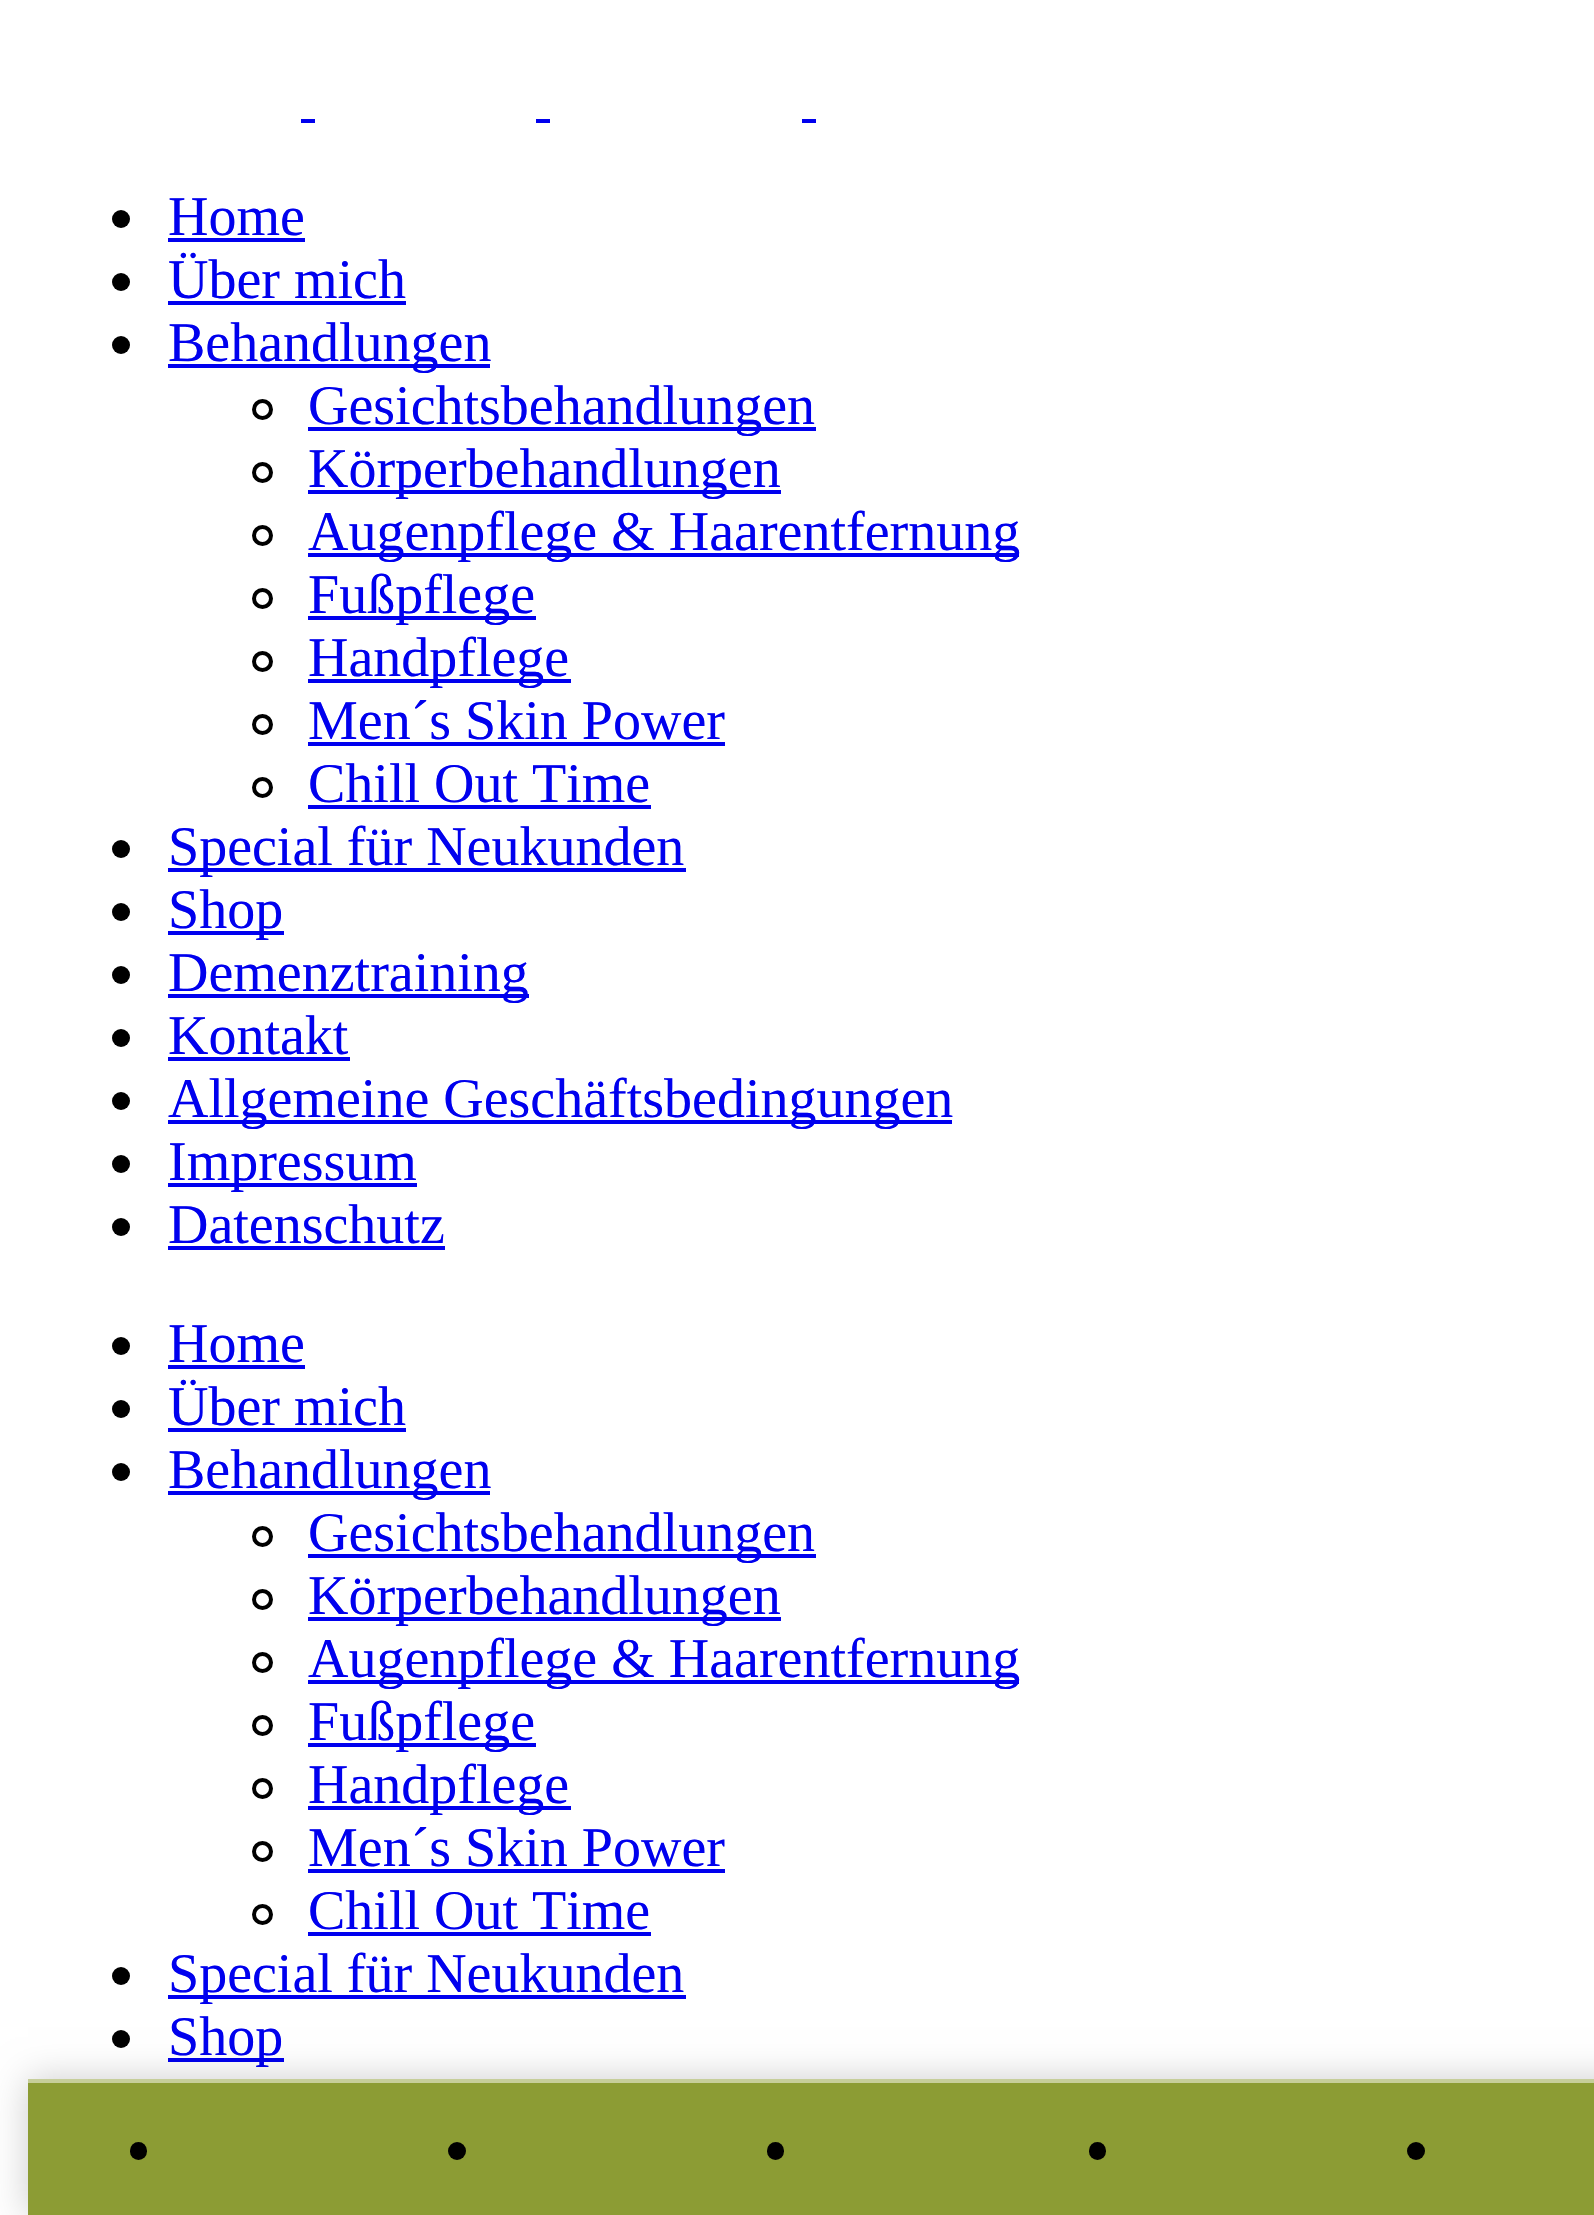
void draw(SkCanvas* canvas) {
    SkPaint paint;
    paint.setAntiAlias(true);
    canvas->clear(0xFFFFFFFF);
    paint.setColor(0xFF0000EE);
    canvas->drawRect(SkRect::MakeXYWH(301, 119, 14, 4), paint);
    canvas->drawRect(SkRect::MakeXYWH(536, 119, 14, 4), paint);
    canvas->drawRect(SkRect::MakeXYWH(802, 119, 14, 4), paint);
    paint.setColor(0xFF000000);
    canvas->drawCircle(121, 219, 9, paint);
    SkFont font1(fontMgr->matchFamilyStyle("Liberation Serif", SkFontStyle::Normal()), 56);
    font1.setSubpixel(true);
    paint.setColor(0xFF0000EE);
    canvas->drawString("Home", 168, 235, font1, paint);
    canvas->drawRect(SkRect::MakeXYWH(168, 238, 137, 4), paint);
    paint.setColor(0xFF000000);
    canvas->drawCircle(121, 282, 9, paint);
    paint.setColor(0xFF0000EE);
    canvas->drawString("Über mich", 168, 298, font1, paint);
    canvas->drawRect(SkRect::MakeXYWH(168, 301, 238, 4), paint);
    paint.setColor(0xFF000000);
    canvas->drawCircle(121, 345, 9, paint);
    paint.setColor(0xFF0000EE);
    canvas->drawRect(SkRect::MakeXYWH(168, 364, 322, 4), paint);
    canvas->drawString("Behandlungen", 168, 361, font1, paint);
    paint.setStyle(SkPaint::kStroke_Style);
    paint.setStrokeWidth(4);
    paint.setColor(0xFF000000);
    canvas->drawCircle(262.5f, 409.5f, 8.5f, paint);
    paint.setStyle(SkPaint::kFill_Style);
    paint.setColor(0xFF0000EE);
    canvas->drawRect(SkRect::MakeXYWH(308, 427, 508, 4), paint);
    canvas->drawString("Gesichtsbehandlungen", 308, 424, font1, paint);
    paint.setStyle(SkPaint::kStroke_Style);
    paint.setColor(0xFF000000);
    canvas->drawCircle(262.5f, 472.5f, 8.5f, paint);
    paint.setStyle(SkPaint::kFill_Style);
    paint.setColor(0xFF0000EE);
    canvas->drawRect(SkRect::MakeXYWH(308, 490, 473, 4), paint);
    canvas->drawString("Körperbehandlungen", 308, 487, font1, paint);
    paint.setStyle(SkPaint::kStroke_Style);
    paint.setColor(0xFF000000);
    canvas->drawCircle(262.5f, 535.5f, 8.5f, paint);
    paint.setStyle(SkPaint::kFill_Style);
    paint.setColor(0xFF0000EE);
    canvas->drawRect(SkRect::MakeXYWH(308, 553, 711, 4), paint);
    canvas->drawString("Augenpflege & Haarentfernung", 308, 550, font1, paint);
    paint.setStyle(SkPaint::kStroke_Style);
    paint.setColor(0xFF000000);
    canvas->drawCircle(262.5f, 598.5f, 8.5f, paint);
    paint.setStyle(SkPaint::kFill_Style);
    paint.setColor(0xFF0000EE);
    canvas->drawRect(SkRect::MakeXYWH(308, 616, 228, 4), paint);
    canvas->drawString("Fußpflege", 308, 613, font1, paint);
    paint.setStyle(SkPaint::kStroke_Style);
    paint.setColor(0xFF000000);
    canvas->drawCircle(262.5f, 661.5f, 8.5f, paint);
    paint.setStyle(SkPaint::kFill_Style);
    paint.setColor(0xFF0000EE);
    canvas->drawRect(SkRect::MakeXYWH(308, 679, 263, 4), paint);
    canvas->drawString("Handpflege", 308, 676, font1, paint);
    paint.setStyle(SkPaint::kStroke_Style);
    paint.setColor(0xFF000000);
    canvas->drawCircle(262.5f, 724.5f, 8.5f, paint);
    paint.setStyle(SkPaint::kFill_Style);
    paint.setColor(0xFF0000EE);
    canvas->drawString("Men´s Skin Power", 308, 739, font1, paint);
    canvas->drawRect(SkRect::MakeXYWH(308, 742, 417, 4), paint);
    paint.setStyle(SkPaint::kStroke_Style);
    paint.setColor(0xFF000000);
    canvas->drawCircle(262.5f, 787.5f, 8.5f, paint);
    paint.setStyle(SkPaint::kFill_Style);
    paint.setColor(0xFF0000EE);
    canvas->drawString("Chill Out Time", 308, 802, font1, paint);
    canvas->drawRect(SkRect::MakeXYWH(308, 805, 343, 4), paint);
    paint.setColor(0xFF000000);
    canvas->drawCircle(121, 849, 9, paint);
    paint.setColor(0xFF0000EE);
    canvas->drawRect(SkRect::MakeXYWH(168, 868, 518, 4), paint);
    canvas->drawString("Special für Neukunden", 168, 865, font1, paint);
    paint.setColor(0xFF000000);
    canvas->drawCircle(121, 912, 9, paint);
    paint.setColor(0xFF0000EE);
    canvas->drawRect(SkRect::MakeXYWH(168, 931, 116, 4), paint);
    canvas->drawString("Shop", 168, 928, font1, paint);
    paint.setColor(0xFF000000);
    canvas->drawCircle(121, 975, 9, paint);
    paint.setColor(0xFF0000EE);
    canvas->drawRect(SkRect::MakeXYWH(168, 994, 361, 4), paint);
    canvas->drawString("Demenztraining", 168, 991, font1, paint);
    paint.setColor(0xFF000000);
    canvas->drawCircle(121, 1038, 9, paint);
    paint.setColor(0xFF0000EE);
    canvas->drawString("Kontakt", 168, 1054, font1, paint);
    canvas->drawRect(SkRect::MakeXYWH(168, 1057, 182, 4), paint);
    paint.setColor(0xFF000000);
    canvas->drawCircle(121, 1101, 9, paint);
    paint.setColor(0xFF0000EE);
    canvas->drawRect(SkRect::MakeXYWH(168, 1120, 784, 4), paint);
    canvas->drawString("Allgemeine Geschäftsbedingungen", 168, 1117, font1, paint);
    paint.setColor(0xFF000000);
    canvas->drawCircle(121, 1164, 9, paint);
    paint.setColor(0xFF0000EE);
    canvas->drawRect(SkRect::MakeXYWH(168, 1183, 249, 4), paint);
    canvas->drawString("Impressum", 168, 1180, font1, paint);
    paint.setColor(0xFF000000);
    canvas->drawCircle(121, 1227, 9, paint);
    paint.setColor(0xFF0000EE);
    canvas->drawString("Datenschutz", 168, 1243, font1, paint);
    canvas->drawRect(SkRect::MakeXYWH(168, 1246, 277, 4), paint);
    paint.setColor(0xFF000000);
    canvas->drawCircle(121, 1346, 9, paint);
    paint.setColor(0xFF0000EE);
    canvas->drawString("Home", 168, 1362, font1, paint);
    canvas->drawRect(SkRect::MakeXYWH(168, 1365, 137, 4), paint);
    paint.setColor(0xFF000000);
    canvas->drawCircle(121, 1409, 9, paint);
    paint.setColor(0xFF0000EE);
    canvas->drawString("Über mich", 168, 1425, font1, paint);
    canvas->drawRect(SkRect::MakeXYWH(168, 1428, 238, 4), paint);
    paint.setColor(0xFF000000);
    canvas->drawCircle(121, 1472, 9, paint);
    paint.setColor(0xFF0000EE);
    canvas->drawRect(SkRect::MakeXYWH(168, 1491, 322, 4), paint);
    canvas->drawString("Behandlungen", 168, 1488, font1, paint);
    paint.setStyle(SkPaint::kStroke_Style);
    paint.setColor(0xFF000000);
    canvas->drawCircle(262.5f, 1536.5f, 8.5f, paint);
    paint.setStyle(SkPaint::kFill_Style);
    paint.setColor(0xFF0000EE);
    canvas->drawRect(SkRect::MakeXYWH(308, 1554, 508, 4), paint);
    canvas->drawString("Gesichtsbehandlungen", 308, 1551, font1, paint);
    paint.setStyle(SkPaint::kStroke_Style);
    paint.setColor(0xFF000000);
    canvas->drawCircle(262.5f, 1599.5f, 8.5f, paint);
    paint.setStyle(SkPaint::kFill_Style);
    paint.setColor(0xFF0000EE);
    canvas->drawRect(SkRect::MakeXYWH(308, 1617, 473, 4), paint);
    canvas->drawString("Körperbehandlungen", 308, 1614, font1, paint);
    paint.setStyle(SkPaint::kStroke_Style);
    paint.setColor(0xFF000000);
    canvas->drawCircle(262.5f, 1662.5f, 8.5f, paint);
    paint.setStyle(SkPaint::kFill_Style);
    paint.setColor(0xFF0000EE);
    canvas->drawRect(SkRect::MakeXYWH(308, 1680, 711, 4), paint);
    canvas->drawString("Augenpflege & Haarentfernung", 308, 1677, font1, paint);
    paint.setStyle(SkPaint::kStroke_Style);
    paint.setColor(0xFF000000);
    canvas->drawCircle(262.5f, 1725.5f, 8.5f, paint);
    paint.setStyle(SkPaint::kFill_Style);
    paint.setColor(0xFF0000EE);
    canvas->drawRect(SkRect::MakeXYWH(308, 1743, 228, 4), paint);
    canvas->drawString("Fußpflege", 308, 1740, font1, paint);
    paint.setStyle(SkPaint::kStroke_Style);
    paint.setColor(0xFF000000);
    canvas->drawCircle(262.5f, 1788.5f, 8.5f, paint);
    paint.setStyle(SkPaint::kFill_Style);
    paint.setColor(0xFF0000EE);
    canvas->drawRect(SkRect::MakeXYWH(308, 1806, 263, 4), paint);
    canvas->drawString("Handpflege", 308, 1803, font1, paint);
    paint.setStyle(SkPaint::kStroke_Style);
    paint.setColor(0xFF000000);
    canvas->drawCircle(262.5f, 1851.5f, 8.5f, paint);
    paint.setStyle(SkPaint::kFill_Style);
    paint.setColor(0xFF0000EE);
    canvas->drawString("Men´s Skin Power", 308, 1866, font1, paint);
    canvas->drawRect(SkRect::MakeXYWH(308, 1869, 417, 4), paint);
    paint.setStyle(SkPaint::kStroke_Style);
    paint.setColor(0xFF000000);
    canvas->drawCircle(262.5f, 1914.5f, 8.5f, paint);
    paint.setStyle(SkPaint::kFill_Style);
    paint.setColor(0xFF0000EE);
    canvas->drawString("Chill Out Time", 308, 1929, font1, paint);
    canvas->drawRect(SkRect::MakeXYWH(308, 1932, 343, 4), paint);
    paint.setColor(0xFF000000);
    canvas->drawCircle(121, 1976, 9, paint);
    paint.setColor(0xFF0000EE);
    canvas->drawRect(SkRect::MakeXYWH(168, 1995, 518, 4), paint);
    canvas->drawString("Special für Neukunden", 168, 1992, font1, paint);
    paint.setColor(0xFF000000);
    canvas->drawCircle(121, 2039, 9, paint);
    paint.setColor(0xFF0000EE);
    canvas->drawRect(SkRect::MakeXYWH(168, 2058, 116, 4), paint);
    canvas->drawString("Shop", 168, 2055, font1, paint);
    paint.setColor(0x33000000);
    paint.setMaskFilter(SkMaskFilter::MakeBlur(kNormal_SkBlurStyle, 17.5f));
    canvas->drawRect(SkRect::MakeXYWH(28, 2079, 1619, 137), paint);
    paint.setMaskFilter(nullptr);
    paint.setColor(0xFF8C9C34);
    canvas->drawRect(SkRect::MakeXYWH(28, 2083, 1566, 132), paint);
    paint.setColor(0xFFC6CE9A);
    canvas->drawRect(SkRect::MakeXYWH(28, 2079, 1566, 4), paint);
    paint.setColor(0xFF000000);
    canvas->drawRoundRect(SkRect::MakeXYWH(130, 2142, 17, 18), 8.5f, 8.5f, paint);
    canvas->drawCircle(457, 2151, 9, paint);
    canvas->drawRoundRect(SkRect::MakeXYWH(767, 2142, 17, 18), 8.5f, 8.5f, paint);
    canvas->drawRoundRect(SkRect::MakeXYWH(1089, 2142, 17, 18), 8.5f, 8.5f, paint);
    canvas->drawCircle(1416, 2151, 9, paint);
}
